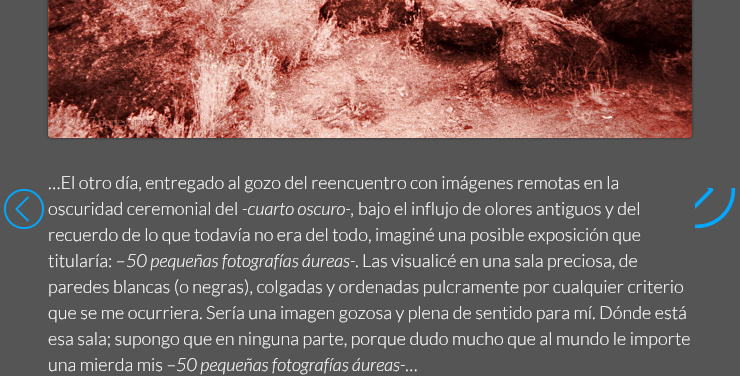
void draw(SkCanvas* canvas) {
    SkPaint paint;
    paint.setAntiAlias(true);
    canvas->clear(0xFF555555);
    paint.setColor(0x80000000);
    paint.setMaskFilter(SkMaskFilter::MakeBlur(kNormal_SkBlurStyle, 1.5f));
    canvas->drawRoundRect(SkRect::MakeXYWH(48, -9, 644, 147), 4, 4, paint);
    paint.setMaskFilter(nullptr);
    canvas->drawImageRect(SkImages::DeferredFromEncodedData(SkData::MakeFromFileName("img1.png")), SkRect::MakeXYWH(48, 0, 644, 138), SkSamplingOptions());
    SkFont font1(fontMgr->matchFamilyStyle("Lato", SkFontStyle(300, SkFontStyle::kNormal_Width, SkFontStyle::kUpright_Slant)), 12);
    font1.setSubpixel(true);
    paint.setColor(0xFFA56157);
    canvas->drawString("© 2007 pepe fuentes", 56, 126, font1, paint);
    SkFont font2(fontMgr->matchFamilyStyle("Lato", SkFontStyle(300, SkFontStyle::kNormal_Width, SkFontStyle::kUpright_Slant)), 18);
    font2.setSubpixel(true);
    paint.setColor(0xFFFFFFFF);
    canvas->drawString("…El otro día, entregado al gozo del reencuentro con imágenes remotas en la", 48, 189, font2, paint);
    canvas->drawString("oscuridad ceremonial del", 48, 215, font2, paint);
    SkFont font3(fontMgr->matchFamilyStyle("Lato", SkFontStyle(300, SkFontStyle::kNormal_Width, SkFontStyle::kItalic_Slant)), 18);
    font3.setSubpixel(true);
    canvas->drawString("-cuarto oscuro-,", 242, 215, font3, paint);
    canvas->drawString("bajo el influjo de olores antiguos y del", 358, 215, font2, paint);
    canvas->drawString("recuerdo de lo que todavía no era del todo, imaginé una posible exposición que", 48, 241, font2, paint);
    canvas->drawString("titularía: –", 48, 267, font2, paint);
    canvas->drawString("50 pequeñas fotografías áureas-.", 126, 267, font3, paint);
    canvas->drawString("Las visualicé en una sala preciosa, de", 362, 267, font2, paint);
    canvas->drawString("paredes blancas (o negras), colgadas y ordenadas pulcramente por cualquier criterio", 48, 293, font2, paint);
    canvas->drawString("que se me ocurriera. Sería una imagen gozosa y plena de sentido para mí. Dónde está", 48, 319, font2, paint);
    canvas->drawString("esa sala; supongo que en ninguna parte, porque dudo mucho que al mundo le importe", 48, 345, font2, paint);
    canvas->drawString("una mierda mis –", 48, 371, font2, paint);
    canvas->drawString("50 pequeñas fotografías áureas-…", 176, 371, font3, paint);
    canvas->drawImageRect(SkImages::DeferredFromEncodedData(SkData::MakeFromFileName("img2.png")), SkRect::MakeXYWH(4, 189, 40, 40), SkSamplingOptions());
    canvas->drawImageRect(SkImages::DeferredFromEncodedData(SkData::MakeFromFileName("img3.png")), SkRect::MakeXYWH(695, 188, 41, 41), SkSamplingOptions());
}
